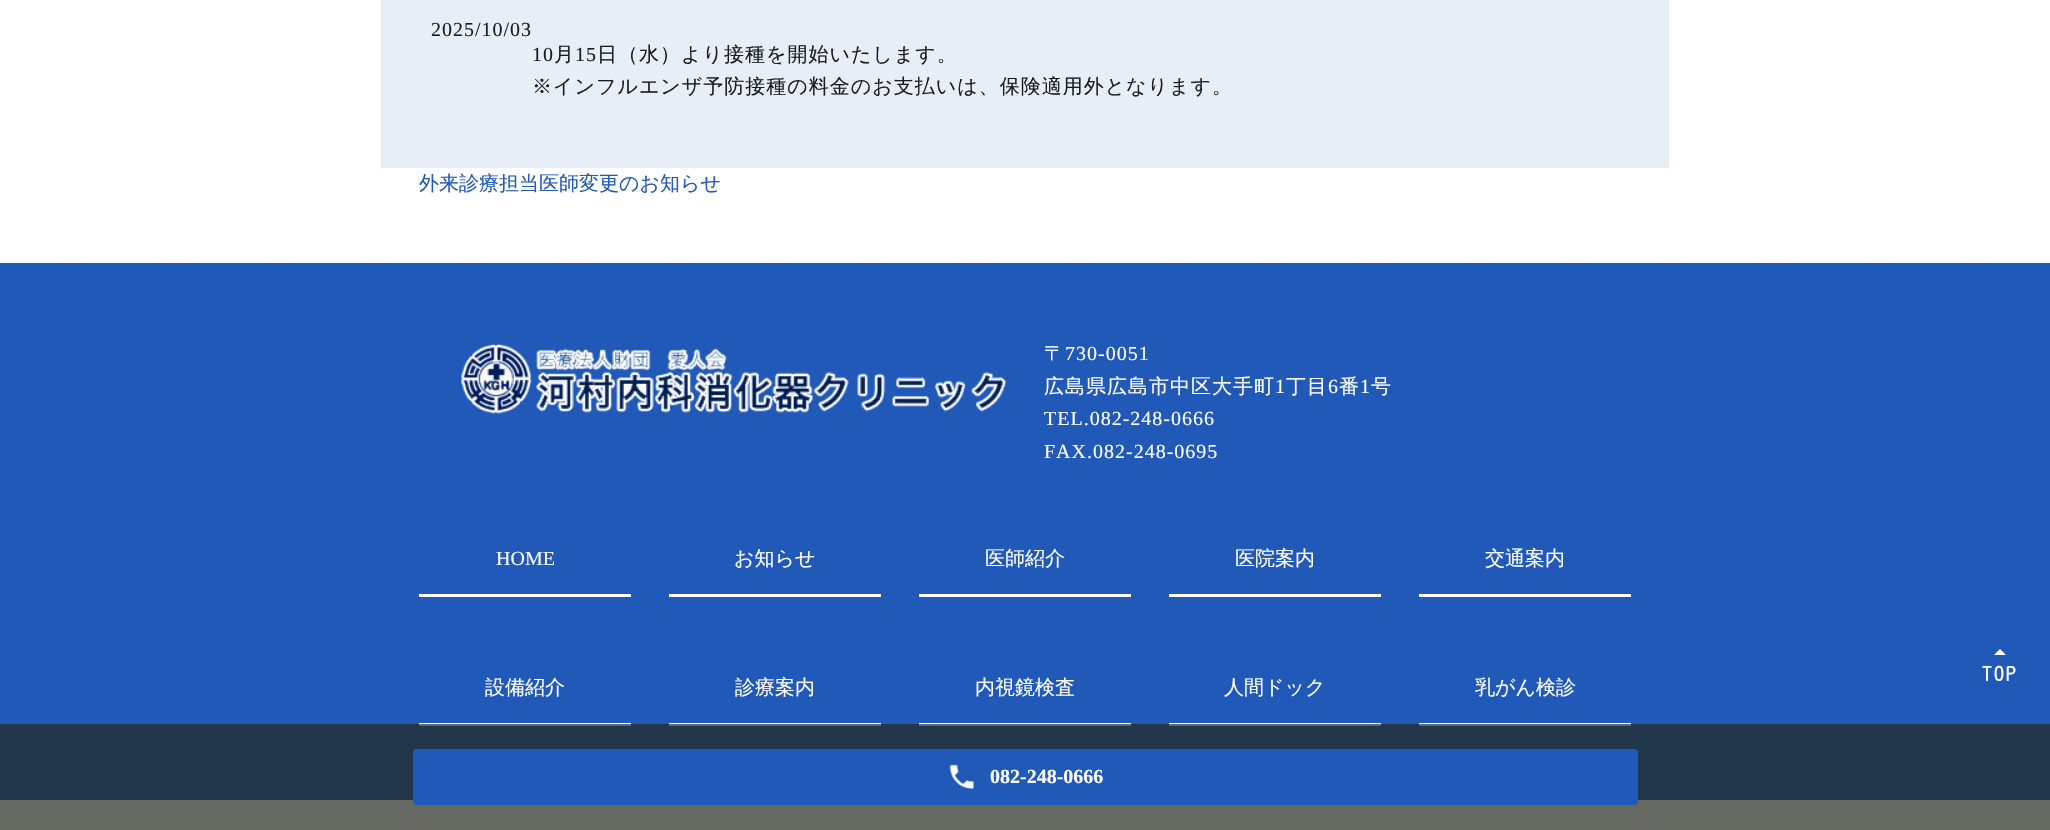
void draw(SkCanvas* canvas) {
    SkPaint paint;
    paint.setAntiAlias(true);
    auto spacedText = [&](const char* s, float x, float y, const SkFont& font, const SkPaint& ink, float letter, float word) {
        std::vector<SkGlyphID> glyphs(font.countText(s, strlen(s), SkTextEncoding::kUTF8));
        std::vector<float> xs(glyphs.size());
        font.textToGlyphs(s, strlen(s), SkTextEncoding::kUTF8, glyphs);
        font.getXPos(glyphs, xs, x);
        float extra = 0;
        for (size_t i = 0; i < glyphs.size(); i++) {
            xs[i] += extra;
            extra += letter + word * (glyphs[i] == font.unicharToGlyph(' '));
        }
        canvas->drawTextBlob(SkTextBlob::MakeFromPosHGlyphs(glyphs, xs, y, font), 0, 0, ink);
    };
    canvas->clear(0xFFFFFFFF);
    paint.setColor(0xFFE8EEF8);
    canvas->drawRect(SkRect::MakeXYWH(381, 0, 1288, 168), paint);
    SkFont font1(fontMgr->matchFamilyStyle("Liberation Serif", SkFontStyle::Normal()), 20);
    font1.setSubpixel(true);
    paint.setColor(0xFF1B1B1B);
    spacedText("2025/10/03", 431, 36, font1, paint, 1, 0);
    spacedText("10", 532, 61, font1, paint, 1, 0);
    SkFont font2(fontMgr->matchFamilyStyle("WenQuanYi Zen Hei", SkFontStyle(500, SkFontStyle::kNormal_Width, SkFontStyle::kUpright_Slant)), 20);
    font2.setSubpixel(true);
    spacedText("月", 554, 61, font2, paint, 1, 0);
    spacedText("15", 575, 61, font1, paint, 1, 0);
    spacedText("日（水）より接種を開始いたします。", 597, 61, font2, paint, 1, 0);
    spacedText("※インフルエンザ予防接種の料金のお支払いは、保険適用外となります。", 532, 93, font2, paint, 1, 0);
    paint.setColor(0xFF2159B8);
    canvas->drawString("外来診療担当医師変更のお知らせ", 419, 190, font2, paint);
    canvas->drawImageRect(SkImages::DeferredFromEncodedData(SkData::MakeFromFileName("img1.png")), SkRect::MakeXYWH(0, 262, 2050, 1), SkSamplingOptions());
    canvas->drawRect(SkRect::MakeXYWH(0, 263, 2050, 461), paint);
    canvas->drawImageRect(SkImages::DeferredFromEncodedData(SkData::MakeFromFileName("img2.png")), SkRect::MakeXYWH(461, 343, 546, 71), SkSamplingOptions());
    paint.setColor(0xFFFFFFFF);
    spacedText("〒", 1044, 360, font2, paint, 1, 0);
    spacedText("730-0051", 1065, 360, font1, paint, 1, 0);
    spacedText("広島県広島市中区大手町", 1044, 393, font2, paint, 1, 0);
    spacedText("1", 1275, 393, font1, paint, 1, 0);
    spacedText("丁目", 1286, 393, font2, paint, 1, 0);
    spacedText("6", 1328, 393, font1, paint, 1, 0);
    spacedText("番", 1339, 393, font2, paint, 1, 0);
    spacedText("1", 1360, 393, font1, paint, 1, 0);
    spacedText("号", 1371, 393, font2, paint, 1, 0);
    spacedText("TEL.082-248-0666", 1044, 425, font1, paint, 1, 0);
    spacedText("FAX.082-248-0695", 1044, 458, font1, paint, 1, 0);
    paint.setColor(0xFF22374C);
    canvas->drawRect(SkRect::MakeXYWH(0, 724, 2050, 76), paint);
    paint.setColor(0xFFFFFFFF);
    canvas->drawRect(SkRect::MakeXYWH(419, 594, 212, 3), paint);
    canvas->drawString("HOME", 496, 565, font1, paint);
    canvas->drawRect(SkRect::MakeXYWH(669, 594, 212, 3), paint);
    canvas->drawString("お知らせ", 734, 565, font2, paint);
    canvas->drawRect(SkRect::MakeXYWH(919, 594, 212, 3), paint);
    canvas->drawString("医師紹介", 985, 565, font2, paint);
    canvas->drawRect(SkRect::MakeXYWH(1169, 594, 212, 3), paint);
    canvas->drawString("医院案内", 1235, 565, font2, paint);
    canvas->drawRect(SkRect::MakeXYWH(1419, 594, 212, 3), paint);
    canvas->drawString("交通案内", 1485, 565, font2, paint);
    canvas->drawRect(SkRect::MakeXYWH(419, 723, 212, 1), paint);
    paint.setColor(0xFF656962);
    canvas->drawRect(SkRect::MakeXYWH(419, 724, 212, 2), paint);
    paint.setColor(0xFFFFFFFF);
    canvas->drawString("設備紹介", 485, 694, font2, paint);
    canvas->drawRect(SkRect::MakeXYWH(669, 723, 212, 1), paint);
    paint.setColor(0xFF656962);
    canvas->drawRect(SkRect::MakeXYWH(669, 724, 212, 2), paint);
    paint.setColor(0xFFFFFFFF);
    canvas->drawString("診療案内", 735, 694, font2, paint);
    canvas->drawRect(SkRect::MakeXYWH(919, 723, 212, 1), paint);
    paint.setColor(0xFF656962);
    canvas->drawRect(SkRect::MakeXYWH(919, 724, 212, 2), paint);
    paint.setColor(0xFFFFFFFF);
    canvas->drawString("内視鏡検査", 975, 694, font2, paint);
    canvas->drawRect(SkRect::MakeXYWH(1169, 723, 212, 1), paint);
    paint.setColor(0xFF656962);
    canvas->drawRect(SkRect::MakeXYWH(1169, 724, 212, 2), paint);
    paint.setColor(0xFFFFFFFF);
    canvas->drawString("人間ドック", 1224, 694, font2, paint);
    canvas->drawRect(SkRect::MakeXYWH(1419, 723, 212, 1), paint);
    paint.setColor(0xFF656962);
    canvas->drawRect(SkRect::MakeXYWH(1419, 724, 212, 2), paint);
    paint.setColor(0xFFFFFFFF);
    canvas->drawString("乳がん検診", 1475, 694, font2, paint);
    paint.setColor(0xFF656962);
    canvas->drawRect(SkRect::MakeXYWH(0, 800, 2050, 30), paint);
    paint.setColor(0xFFFFFFFF);
    canvas->drawPath(SkPathBuilder().moveTo(2006, 655).lineTo(1994, 655).lineTo(2000, 649).close().detach(), paint);
    SkFont font3(fontMgr->matchFamilyStyle("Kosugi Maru", SkFontStyle::Normal()), 20);
    font3.setSubpixel(true);
    spacedText("TOP", 1982, 681, font3, paint, 2, 0);
    paint.setColor(0xFF2159B8);
    canvas->drawRoundRect(SkRect::MakeXYWH(413, 749, 1225, 56), 4, 4, paint);
    canvas->drawImageRect(SkImages::DeferredFromEncodedData(SkData::MakeFromFileName("img3.png")), SkRect::MakeXYWH(949, 764, 25, 25), SkSamplingOptions());
    SkFont font4(fontMgr->matchFamilyStyle("Liberation Serif", SkFontStyle::Bold()), 20);
    font4.setSubpixel(true);
    paint.setColor(0xFFFFFFFF);
    canvas->drawString("082-248-0666", 990, 783, font4, paint);
}
